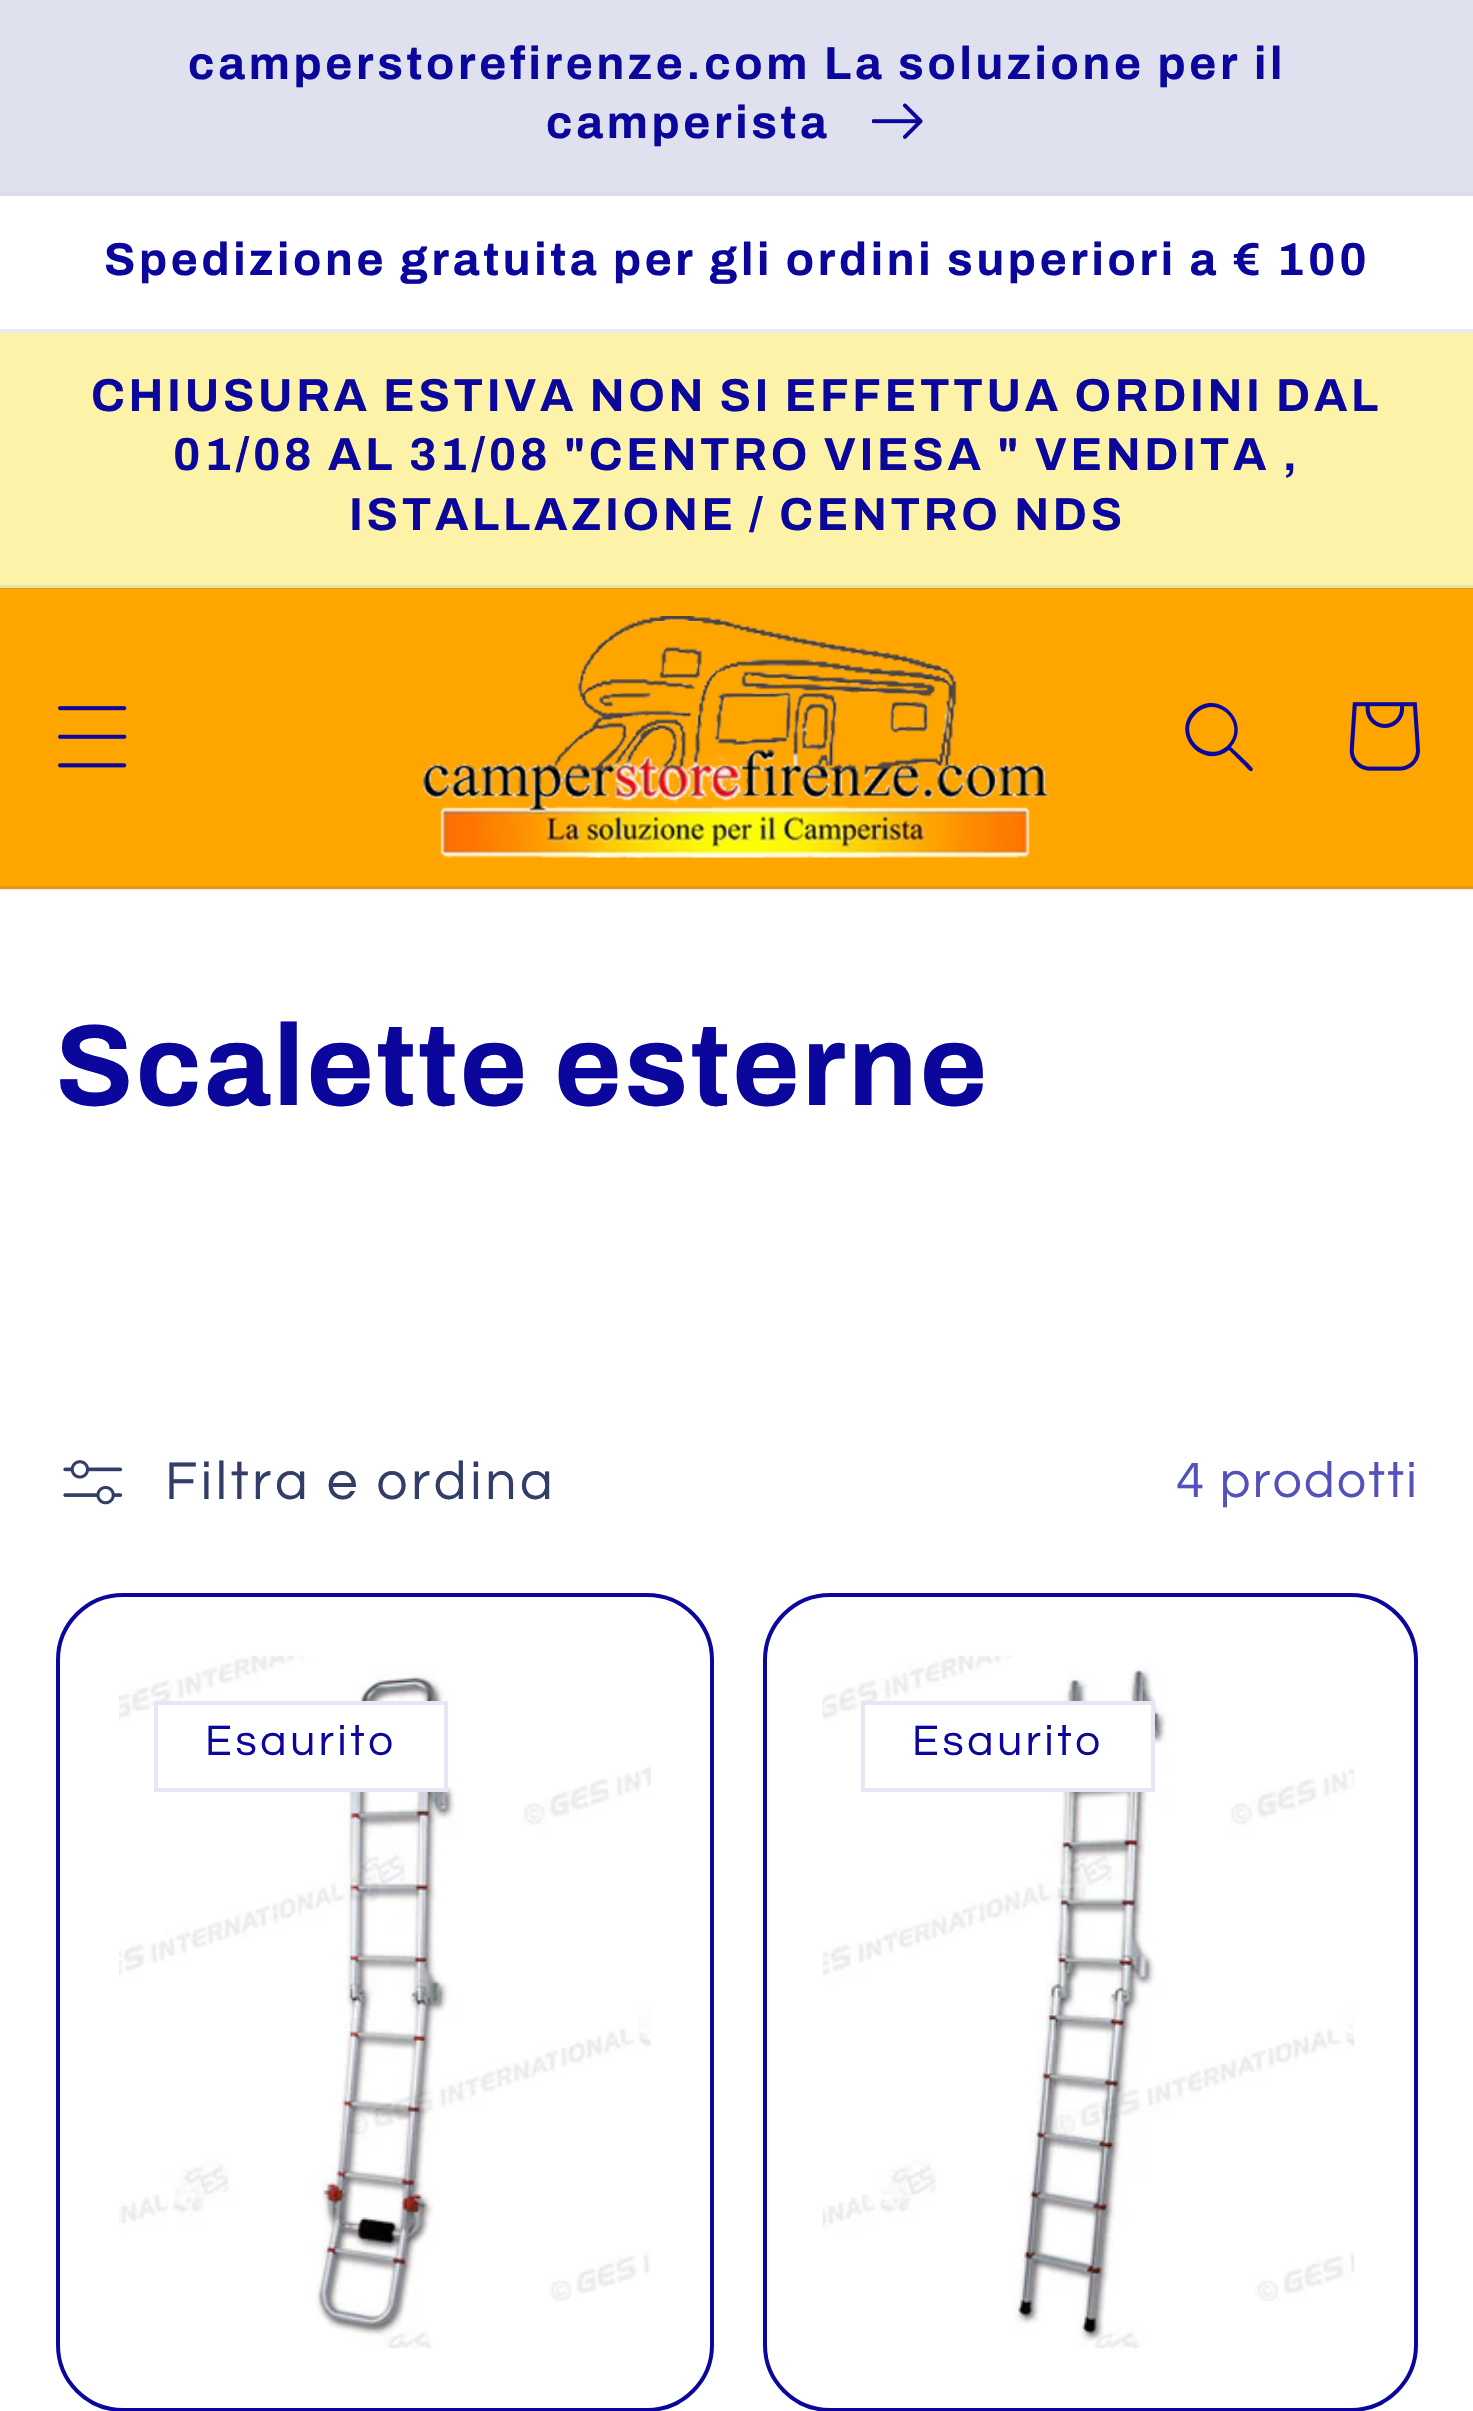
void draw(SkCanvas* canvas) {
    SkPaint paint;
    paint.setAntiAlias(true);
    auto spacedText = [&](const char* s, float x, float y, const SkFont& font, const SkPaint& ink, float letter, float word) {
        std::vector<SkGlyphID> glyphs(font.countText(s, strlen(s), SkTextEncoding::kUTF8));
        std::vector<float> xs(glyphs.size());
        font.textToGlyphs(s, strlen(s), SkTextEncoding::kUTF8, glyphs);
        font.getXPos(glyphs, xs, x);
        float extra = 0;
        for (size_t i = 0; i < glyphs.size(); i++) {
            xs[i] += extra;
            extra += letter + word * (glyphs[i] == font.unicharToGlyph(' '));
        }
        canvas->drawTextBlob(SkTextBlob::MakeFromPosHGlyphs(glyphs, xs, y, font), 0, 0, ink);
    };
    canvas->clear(0xFFFFFFFF);
    paint.setColor(0xFFEBEBF7);
    canvas->drawRect(SkRect::MakeXYWH(0, 889, 1473, 1), paint);
    paint.setColor(0xFFDADCED);
    canvas->drawRect(SkRect::MakeXYWH(0, 193, 1473, 3), paint);
    paint.setColor(0xFFDFE1EF);
    canvas->drawRect(SkRect::MakeXYWH(0, 0, 1473, 193), paint);
    SkFont font1(fontMgr->matchFamilyStyle("Archivo", SkFontStyle::Bold()), 46.2f);
    font1.setSubpixel(true);
    paint.setColor(0xFF0B079C);
    spacedText("camperstorefirenze.com La soluzione per il", 188, 79, font1, paint, 3.68f, 0);
    spacedText("camperista", 546, 138, font1, paint, 3.68f, 0);
    canvas->drawImageRect(SkImages::DeferredFromEncodedData(SkData::MakeFromFileName("img1.png")), SkRect::MakeXYWH(872, 103, 51, 36), SkSamplingOptions());
    paint.setColor(0xFFEBEBF7);
    canvas->drawRect(SkRect::MakeXYWH(0, 329, 1473, 4), paint);
    paint.setColor(0xFF0B079C);
    spacedText("Spedizione gratuita per gli ordini superiori a € 100", 104, 275, font1, paint, 3.68f, 0);
    paint.setColor(0xFFFCF3A8);
    canvas->drawRect(SkRect::MakeXYWH(0, 333, 1473, 252), paint);
    paint.setColor(0xFFE9E0A7);
    canvas->drawRect(SkRect::MakeXYWH(0, 585, 1473, 3), paint);
    paint.setColor(0xFF0B079C);
    spacedText("CHIUSURA ESTIVA NON SI EFFETTUA ORDINI DAL", 91, 411, font1, paint, 3.68f, -0.25f);
    spacedText("01/08 AL 31/08", 173, 470, font1, paint, 3.68f, 0);
    spacedText("\"CENTRO VIESA \" VENDITA ,", 564, 470, font1, paint, 3.68f, 0);
    spacedText("ISTALLAZIONE", 349, 530, font1, paint, 3.68f, 0);
    spacedText("/ CENTRO NDS", 749, 530, font1, paint, 3.68f, 0);
    paint.setColor(0xFFFFA500);
    canvas->drawRect(SkRect::MakeXYWH(0, 589, 1473, 297), paint);
    paint.setColor(0xFFEB980C);
    canvas->drawRect(SkRect::MakeXYWH(0, 588, 1473, 1), paint);
    canvas->drawRect(SkRect::MakeXYWH(0, 886, 1473, 3), paint);
    canvas->drawImageRect(SkImages::DeferredFromEncodedData(SkData::MakeFromFileName("img2.png")), SkRect::MakeXYWH(58, 706, 69, 62), SkSamplingOptions());
    canvas->drawImageRect(SkImages::DeferredFromEncodedData(SkData::MakeFromFileName("img3.png")), SkRect::MakeXYWH(423, 616, 626, 242), SkSamplingOptions());
    paint.setColor(0xFF0B079C);
    canvas->drawPath(SkPathBuilder(SkPathFillType::kEvenOdd).moveTo(1228, 745).cubicTo(1207, 766, 1175, 734, 1196, 714).cubicTo(1217, 693, 1248, 724, 1228, 745).close().moveTo(1229, 750).cubicTo(1203, 771, 1170, 734, 1193, 711).cubicTo(1217, 687, 1253, 722, 1231, 747).cubicTo(1234, 750, 1253, 767, 1253, 769).lineTo(1252, 771).cubicTo(1250, 772, 1247, 768, 1246, 767).close().detach(), paint);
    canvas->drawImageRect(SkImages::DeferredFromEncodedData(SkData::MakeFromFileName("img4.png")), SkRect::MakeXYWH(1349, 702, 71, 69), SkSamplingOptions());
    SkFont font2(fontMgr->matchFamilyStyle("Archivo", SkFontStyle::Bold()), 115.5f);
    font2.setSubpixel(true);
    spacedText("Scalette esterne", 55, 1105, font2, paint, 2.25f, 0);
    canvas->drawImageRect(SkImages::DeferredFromEncodedData(SkData::MakeFromFileName("img5.png")), SkRect::MakeXYWH(63, 1460, 60, 45), SkSamplingOptions());
    SkFont font3(fontMgr->matchFamilyStyle("Questrial", SkFontStyle::Normal()), 55);
    font3.setSubpixel(true);
    paint.setColor(0xFF323D68);
    spacedText("Filtra e ordina", 165, 1499, font3, paint, 3.68f, 0);
    SkFont font4(fontMgr->matchFamilyStyle("Questrial", SkFontStyle::Normal()), 51.5f);
    font4.setSubpixel(true);
    paint.setColor(0xFF5451BA);
    spacedText("4 prodotti", 1176, 1497, font4, paint, 2.25f, 0);
    paint.setStyle(SkPaint::kStroke_Style);
    paint.setStrokeWidth(4);
    paint.setColor(0xFF0B079C);
    canvas->drawRoundRect(SkRect::MakeXYWH(58, 1595, 654, 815), 65, 65, paint);
    canvas->drawImageRect(SkImages::DeferredFromEncodedData(SkData::MakeFromFileName("img6.png")), SkRect::MakeXYWH(119, 1655, 532, 694), SkSamplingOptions());
    paint.setStyle(SkPaint::kFill_Style);
    paint.setColor(0xFFFFFFFF);
    canvas->drawRect(SkRect::MakeXYWH(156, 1703, 290, 87), paint);
    paint.setStyle(SkPaint::kStroke_Style);
    paint.setColor(0xFFE7E6F5);
    canvas->drawRect(SkRect::MakeXYWH(156, 1703, 290, 87), paint);
    SkFont font5(fontMgr->matchFamilyStyle("Questrial", SkFontStyle::Normal()), 44);
    font5.setSubpixel(true);
    paint.setStyle(SkPaint::kFill_Style);
    paint.setColor(0xFF0B079C);
    spacedText("Esaurito", 205, 1755, font5, paint, 3.68f, 0);
    paint.setStyle(SkPaint::kStroke_Style);
    canvas->drawRoundRect(SkRect::MakeXYWH(765, 1595, 651, 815), 65, 65, paint);
    canvas->drawImageRect(SkImages::DeferredFromEncodedData(SkData::MakeFromFileName("img7.png")), SkRect::MakeXYWH(822, 1655, 533, 694), SkSamplingOptions());
    paint.setStyle(SkPaint::kFill_Style);
    paint.setColor(0xFFFFFFFF);
    canvas->drawRect(SkRect::MakeXYWH(863, 1703, 290, 87), paint);
    paint.setStyle(SkPaint::kStroke_Style);
    paint.setColor(0xFFE7E6F5);
    canvas->drawRect(SkRect::MakeXYWH(863, 1703, 290, 87), paint);
    paint.setStyle(SkPaint::kFill_Style);
    paint.setColor(0xFF0B079C);
    spacedText("Esaurito", 912, 1755, font5, paint, 3.68f, 0);
}
